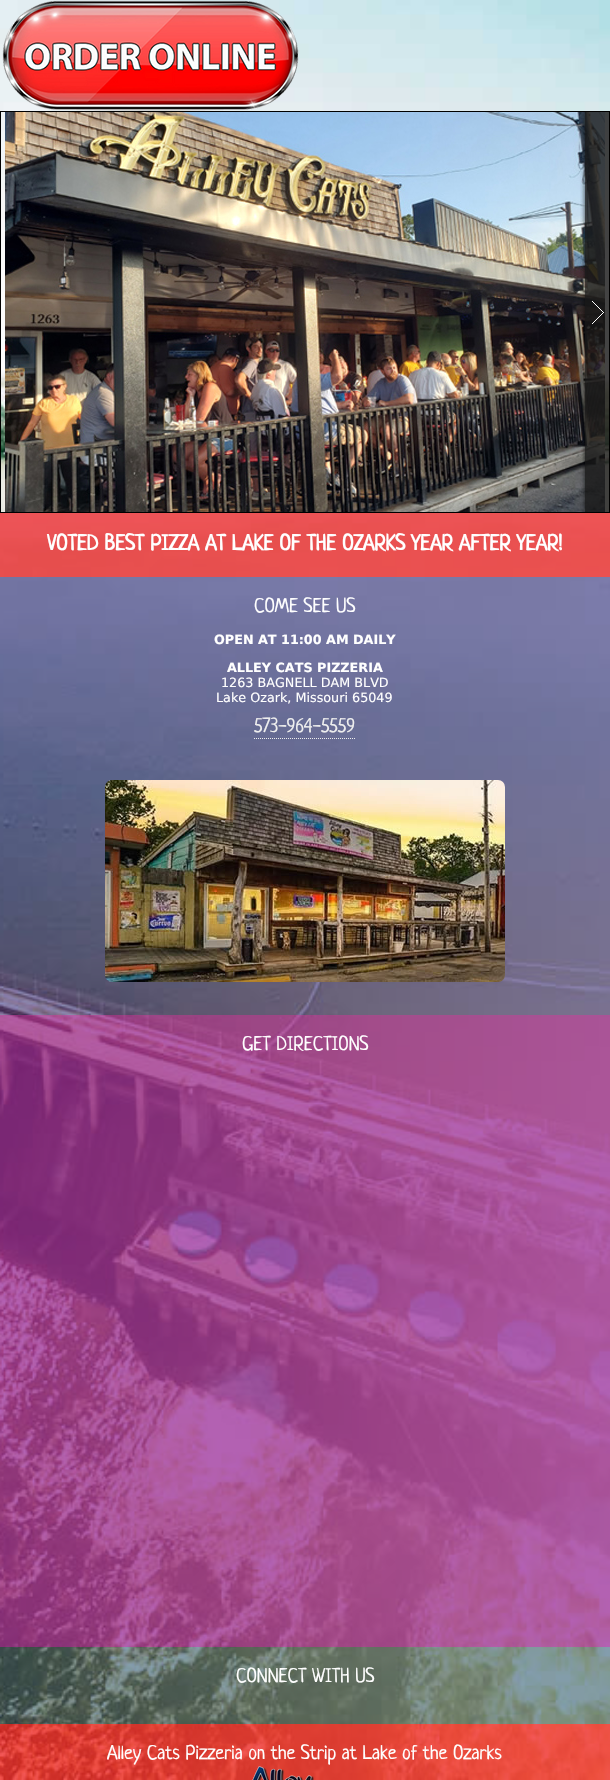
void draw(SkCanvas* canvas) {
    SkPaint paint;
    paint.setAntiAlias(true);
    canvas->clear(0xFFFFFFFF);
    canvas->drawImageRect(SkImages::DeferredFromEncodedData(SkData::MakeFromFileName("img1.png")), SkRect::MakeXYWH(0, 0, 610, 1780), SkSamplingOptions());
    canvas->drawImageRect(SkImages::DeferredFromEncodedData(SkData::MakeFromFileName("img2.png")), SkRect::MakeXYWH(2, 0, 297, 111), SkSamplingOptions());
    paint.setStyle(SkPaint::kStroke_Style);
    paint.setStrokeWidth(1);
    paint.setColor(0xFF000000);
    canvas->drawRect(SkRect::MakeXYWH(0.5f, 111.5f, 609, 401), paint);
    canvas->drawImageRect(SkImages::DeferredFromEncodedData(SkData::MakeFromFileName("img4.png")), SkRect::MakeXYWH(5, 112, 600, 400), SkSamplingOptions());
    paint.setStyle(SkPaint::kFill_Style);
    paint.setColor(0xBFEE2128);
    canvas->drawRect(SkRect::MakeXYWH(0, 513, 610, 64), paint);
    canvas->save();
    canvas->clipRect(SkRect::MakeXYWH(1, 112, 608, 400));
    canvas->clipRect(SkRect::MakeXYWH(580, 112, 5, 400));
    paint.setColor(0xBF000000);
    paint.setMaskFilter(SkMaskFilter::MakeBlur(kNormal_SkBlurStyle, 2.5f));
    canvas->drawRect(SkRect::MakeXYWH(585, 112, 24, 400), paint);
    paint.setMaskFilter(nullptr);
    canvas->restore();
    paint.setColor(0xCC151515);
    canvas->drawRect(SkRect::MakeXYWH(585, 112, 24, 400), paint);
    canvas->drawImageRect(SkImages::DeferredFromEncodedData(SkData::MakeFromFileName("img3.png")), SkRect::MakeXYWH(592, 301, 12, 23), SkSamplingOptions());
    SkFont font1(fontMgr->matchFamilyStyle("Neucha", SkFontStyle::Bold()), 21.75f);
    font1.setSubpixel(true);
    paint.setColor(0xFFFFFFFF);
    canvas->drawString("VOTED BEST PIZZA AT LAKE OF THE OZARKS YEAR AFTER YEAR!", 47, 550, font1, paint);
    paint.setColor(0x8016158A);
    canvas->drawRect(SkRect::MakeXYWH(0, 577, 610, 438), paint);
    SkFont font2(fontMgr->matchFamilyStyle("Neucha", SkFontStyle::Normal()), 19.8f);
    font2.setSubpixel(true);
    paint.setColor(0xFFFFFFFF);
    canvas->drawString("COME SEE US", 254, 612, font2, paint);
    SkFont font3(fontMgr->matchFamilyStyle("DejaVu Sans", SkFontStyle::Bold()), 12.75f);
    font3.setSubpixel(true);
    canvas->drawString("OPEN AT 11:00 AM DAILY", 214, 644, font3, paint);
    canvas->drawString("ALLEY CATS PIZZERIA", 227, 672, font3, paint);
    SkFont font4(fontMgr->matchFamilyStyle("DejaVu Sans", SkFontStyle::Normal()), 12.75f);
    font4.setSubpixel(true);
    canvas->drawString("1263 BAGNELL DAM BLVD", 221, 687, font4, paint);
    canvas->drawString("Lake Ozark, Missouri 65049", 216, 702, font4, paint);
    paint.setColor(0xFFEEEEEE);
    canvas->drawString("573-964-5559", 254, 732, font2, paint);
    paint.setStyle(SkPaint::kStroke_Style);
    paint.setPathEffect(SkDashPathEffect::Make({{1, 1}}, 0));
    canvas->drawPath(SkPathBuilder().moveTo(254, 738.5f).lineTo(356, 738.5f).detach(), paint);
    paint.setPathEffect(nullptr);
    canvas->drawImageRect(SkImages::DeferredFromEncodedData(SkData::MakeFromFileName("img5.png")), SkRect::MakeXYWH(105, 780, 400, 202), SkSamplingOptions());
    paint.setStyle(SkPaint::kFill_Style);
    paint.setColor(0xB3931F96);
    canvas->drawRect(SkRect::MakeXYWH(0, 1015, 610, 632), paint);
    paint.setColor(0xFFFFFFFF);
    canvas->drawString("GET DIRECTIONS", 242, 1050, font2, paint);
    paint.setColor(0x80093F66);
    canvas->drawRect(SkRect::MakeXYWH(0, 1647, 610, 77), paint);
    paint.setColor(0xFFFFFFFF);
    canvas->drawString("CONNECT WITH US", 236, 1682, font2, paint);
    paint.setColor(0xBFEE2128);
    canvas->drawRect(SkRect::MakeXYWH(0, 1724, 610, 56), paint);
    paint.setColor(0xFFFFFFFF);
    canvas->drawString("Alley Cats Pizzeria on the Strip at Lake of the Ozarks", 107, 1759, font2, paint);
    canvas->drawImageRect(SkImages::DeferredFromEncodedData(SkData::MakeFromFileName("img6.png")), SkRect::MakeXYWH(252, 1766, 62, 14), SkSamplingOptions());
}
